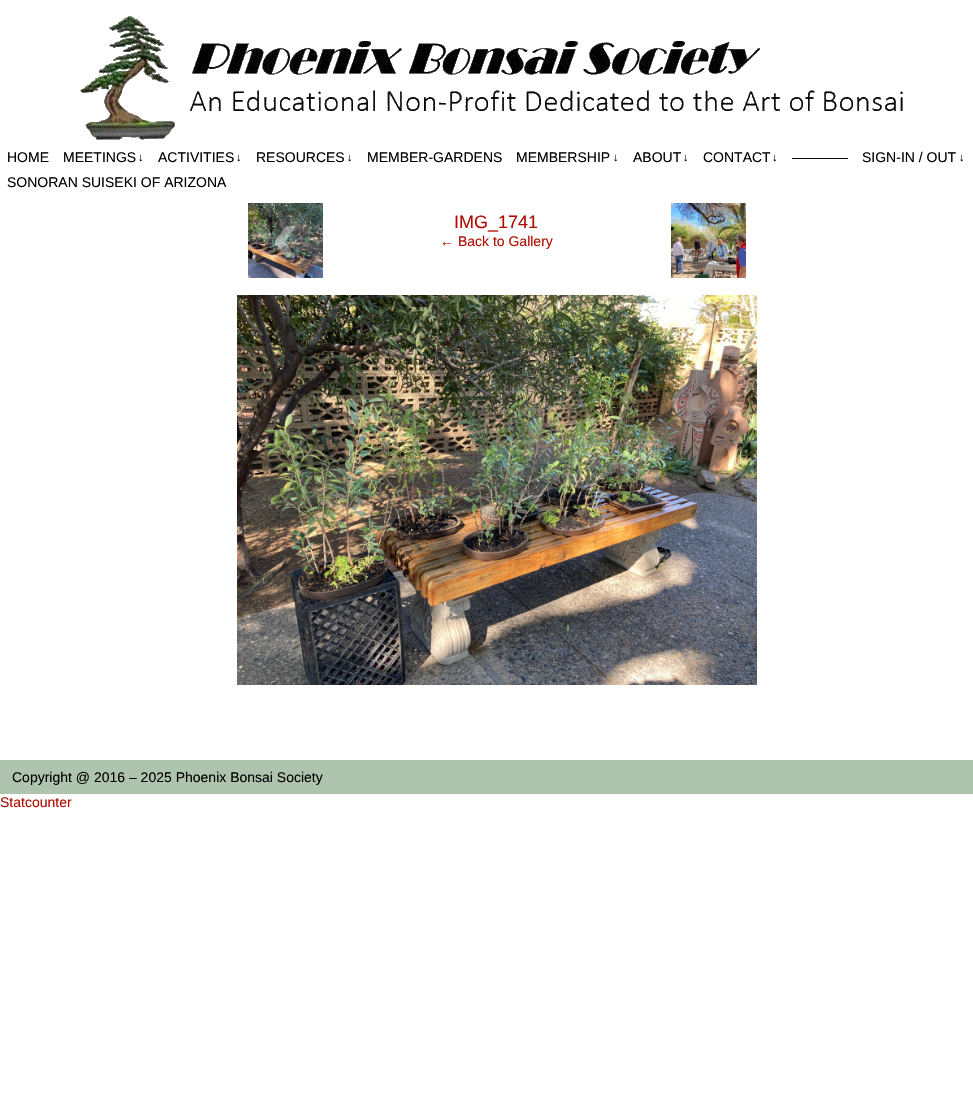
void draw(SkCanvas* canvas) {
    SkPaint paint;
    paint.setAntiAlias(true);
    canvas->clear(0xFFFFFFFF);
    canvas->drawImageRect(SkImages::DeferredFromEncodedData(SkData::MakeFromFileName("img1.png")), SkRect::MakeXYWH(80, 16, 823, 124), SkSamplingOptions());
    SkFont font1(fontMgr->matchFamilyStyle("Liberation Sans", SkFontStyle::Normal()), 14);
    font1.setSubpixel(true);
    paint.setColor(0xFF000000);
    canvas->drawString("HOME", 7, 162, font1, paint);
    canvas->drawString("MEETINGS", 63, 162, font1, paint);
    SkFont font2(fontMgr->matchFamilyStyle("Liberation Sans", SkFontStyle::Normal()), 11);
    font2.setSubpixel(true);
    canvas->drawString("↓", 138, 161, font2, paint);
    canvas->drawString("ACTIVITIES", 158, 162, font1, paint);
    canvas->drawString("↓", 236, 161, font2, paint);
    canvas->drawString("RESOURCES", 256, 162, font1, paint);
    canvas->drawString("↓", 347, 161, font2, paint);
    canvas->drawString("MEMBER-GARDENS", 367, 162, font1, paint);
    canvas->drawString("MEMBERSHIP", 516, 162, font1, paint);
    canvas->drawString("↓", 613, 161, font2, paint);
    canvas->drawString("ABOUT", 633, 162, font1, paint);
    canvas->drawString("↓", 683, 161, font2, paint);
    canvas->drawString("CONTACT", 703, 162, font1, paint);
    canvas->drawString("↓", 772, 161, font2, paint);
    canvas->drawString("————", 792, 162, font1, paint);
    canvas->drawString("SIGN-IN / OUT", 862, 162, font1, paint);
    canvas->drawString("↓", 959, 161, font2, paint);
    canvas->drawString("SONORAN SUISEKI OF ARIZONA", 7, 187, font1, paint);
    canvas->drawImageRect(SkImages::DeferredFromEncodedData(SkData::MakeFromFileName("img2.png")), SkRect::MakeXYWH(248, 203, 75, 75), SkSamplingOptions());
    SkFont font3(fontMgr->matchFamilyStyle("Liberation Sans", SkFontStyle::Bold()), 80);
    font3.setSubpixel(true);
    paint.setColor(0xFFFFFFFF);
    canvas->drawString("‹", 272, 263, font3, paint);
    canvas->drawImageRect(SkImages::DeferredFromEncodedData(SkData::MakeFromFileName("img3.png")), SkRect::MakeXYWH(275, 226, 21, 32), SkSamplingOptions());
    SkFont font4(fontMgr->matchFamilyStyle("Liberation Sans", SkFontStyle::Normal()), 18);
    font4.setSubpixel(true);
    paint.setColor(0xFFB00B00);
    canvas->drawString("IMG_1741", 454, 228, font4, paint);
    canvas->drawString("← Back to Gallery", 440, 246, font1, paint);
    canvas->drawImageRect(SkImages::DeferredFromEncodedData(SkData::MakeFromFileName("img4.png")), SkRect::MakeXYWH(671, 203, 75, 75), SkSamplingOptions());
    paint.setColor(0xFFFFFFFF);
    canvas->drawString("›", 695, 263, font3, paint);
    canvas->drawImageRect(SkImages::DeferredFromEncodedData(SkData::MakeFromFileName("img5.png")), SkRect::MakeXYWH(698, 226, 21, 32), SkSamplingOptions());
    canvas->drawImageRect(SkImages::DeferredFromEncodedData(SkData::MakeFromFileName("img6.png")), SkRect::MakeXYWH(237, 295, 520, 390), SkSamplingOptions());
    paint.setColor(0xFFAEC4AE);
    canvas->drawRect(SkRect::MakeXYWH(0, 760, 973, 34), paint);
    paint.setColor(0xFF000000);
    canvas->drawString("Copyright @ 2016 – 2025 Phoenix Bonsai Society", 12, 782, font1, paint);
    paint.setColor(0xFFB00B00);
    canvas->drawString("Statcounter", 0, 807, font1, paint);
}
